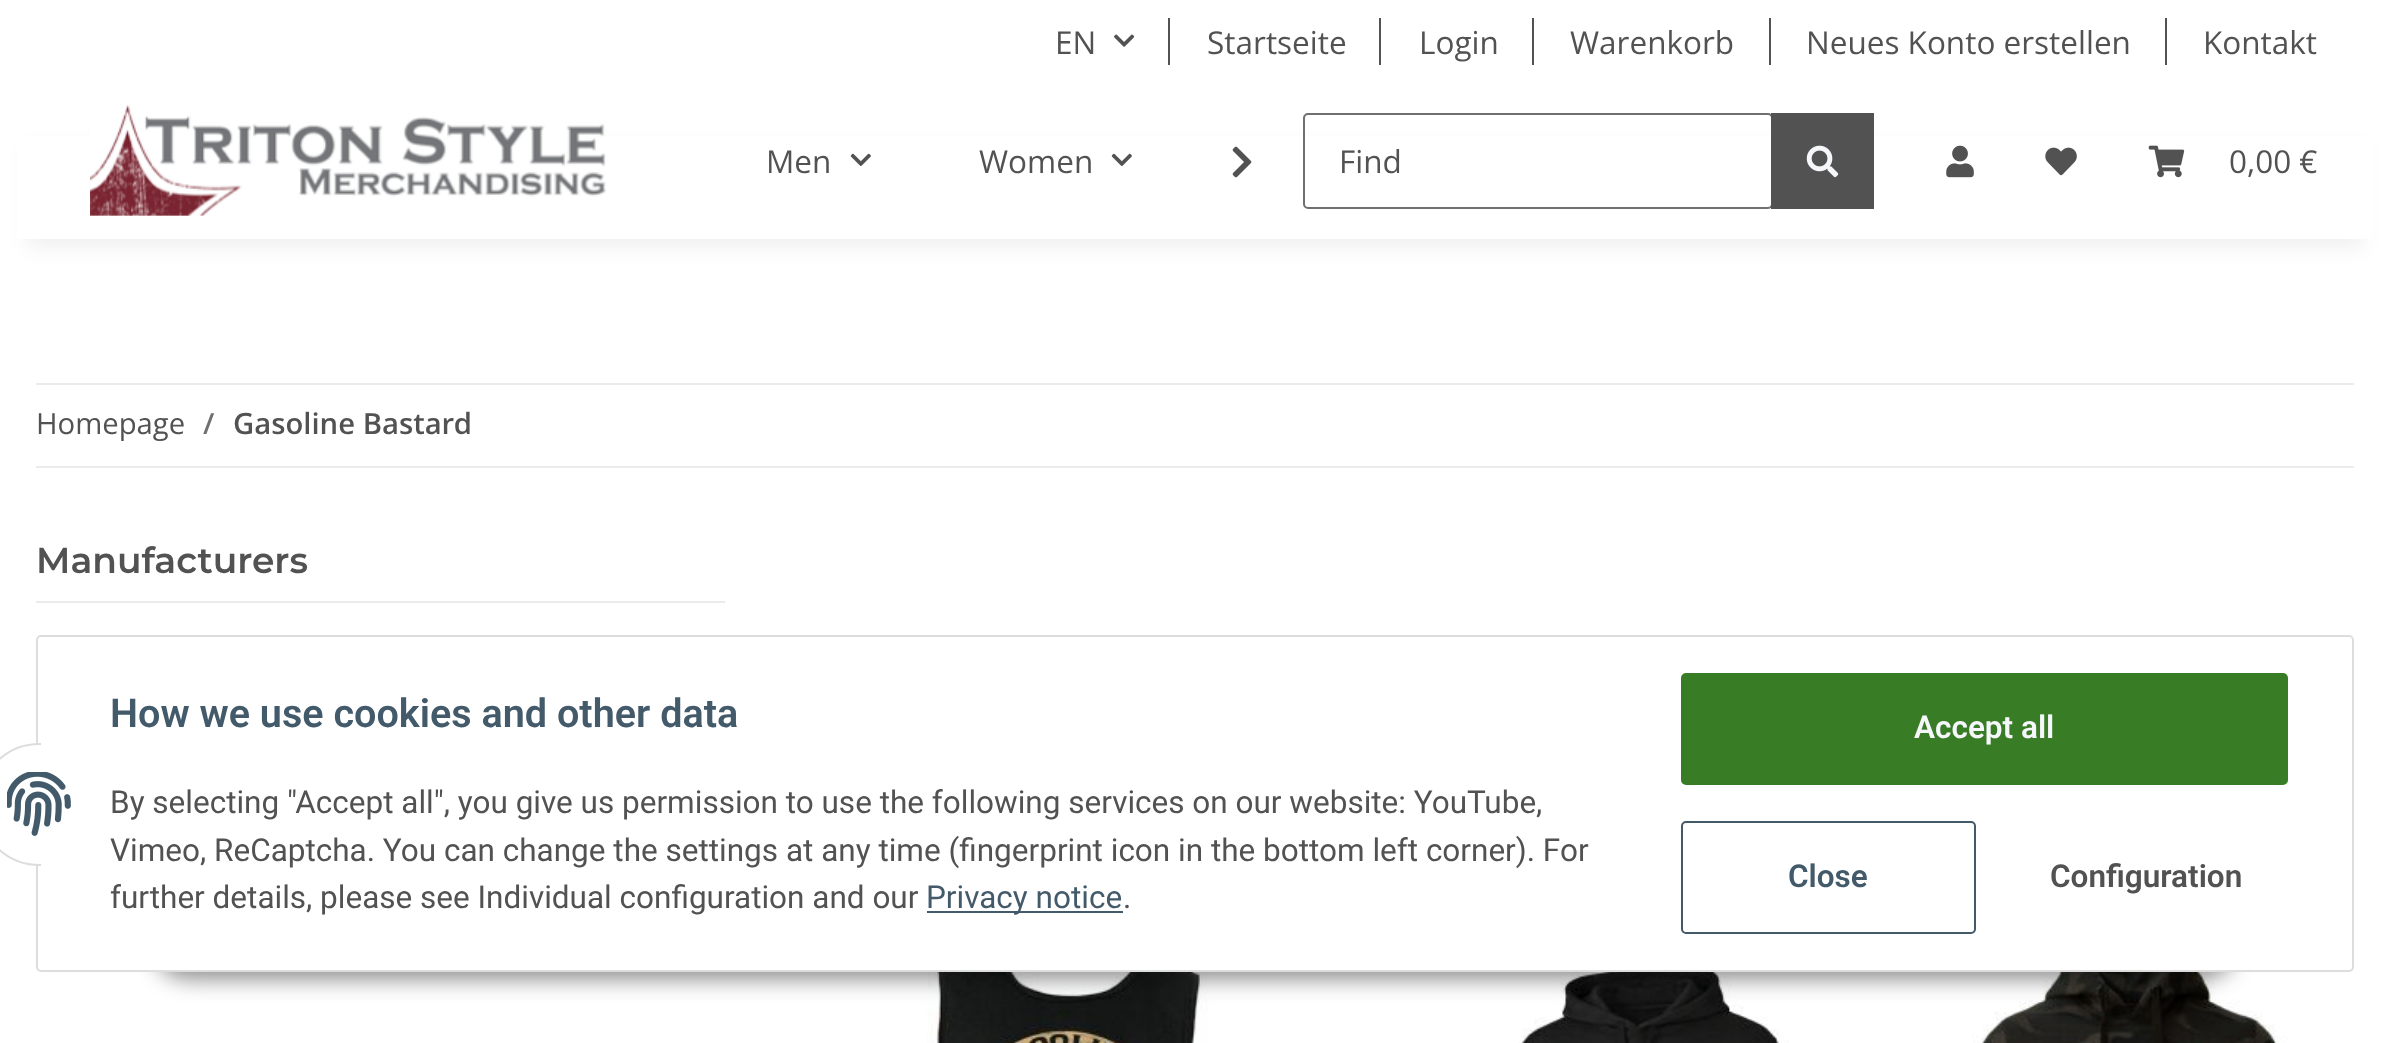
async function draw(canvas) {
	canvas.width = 2389;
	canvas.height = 1043;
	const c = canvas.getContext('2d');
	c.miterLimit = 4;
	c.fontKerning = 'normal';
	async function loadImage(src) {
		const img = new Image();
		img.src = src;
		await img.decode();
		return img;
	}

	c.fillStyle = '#fff';
	c.fillRect(0, 0, 2389, 1043);
	c.font = '31.5px Open Sans';
	c.fillStyle = '#525252';
	c.fillText('EN', 1055, 54);
	c.drawImage(await loadImage('img1.png'), 1114, 34, 21, 13);
	c.fillRect(1168, 18, 2, 47);
	c.fillText('Startseite', 1207, 54);
	c.fillRect(1379, 18, 2, 47);
	c.fillText('Login', 1419, 54);
	c.fillRect(1532, 18, 2, 47);
	c.fillText('Warenkorb', 1570, 54);
	c.fillRect(1769, 18, 2, 47);
	c.fillText('Neues Konto erstellen', 1806, 54);
	c.fillRect(2165, 18, 2, 47);
	c.fillText('Kontakt', 2203, 54);
	c.fillStyle = '#0000000f';
	c.filter = 'blur(10px)';
	c.beginPath();
	c.rect(27, 146, 2336, 102);
	c.fill();
	c.filter = 'none';
	c.fillStyle = '#fff';
	c.fillRect(17, 136, 2356, 103);
	c.drawImage(await loadImage('img2.png'), 90, 104, 516, 112);
	c.fillStyle = '#525252';
	c.fillText('Men', 766, 173);
	c.drawImage(await loadImage('img3.png'), 850, 153, 21, 13);
	c.fillText('Women', 979, 173);
	c.drawImage(await loadImage('img3.png'), 1111, 153, 21, 13);
	c.drawImage(await loadImage('img4.png'), 1232, 146, 20, 32);
	c.beginPath();
	c.roundRect(1304, 114, 468, 94, 4);
	c.strokeStyle = '#707070';
	c.lineWidth = 2;
	c.stroke();
	c.fillText('Find', 1339, 173);
	c.fillRect(1771, 113, 103, 96);
	c.drawImage(await loadImage('img5.png'), 1806, 145, 33, 33);
	c.drawImage(await loadImage('img6.png'), 1946, 145, 28, 33);
	c.drawImage(await loadImage('img7.png'), 2045, 147, 32, 29);
	c.drawImage(await loadImage('img8.png'), 2148, 145, 37, 33);
	c.fillText('0,00 €', 2229, 173);
	c.fillStyle = '#ebebeb';
	c.fillRect(36, 383, 2318, 2);
	c.fillRect(36, 466, 2318, 2);
	c.font = '29.25px Open Sans';
	c.fillStyle = '#525252';
	c.fillText('Homepage', 36, 434);
	c.font = '600 29.25px Open Sans';
	c.fillStyle = '#707070';
	c.fillText('/', 203, 434);
	c.fillStyle = '#525252';
	c.fillText('Gasoline Bastard', 233, 434);
	c.fillStyle = '#ebebeb';
	c.fillRect(36, 601, 689, 2);
	c.font = '600 36px Montserrat';
	c.fillStyle = '#525252';
	c.fillText('Manufacturers', 36, 573);
	c.drawImage(await loadImage('img9.png'), 927, 972, 282, 71);
	c.drawImage(await loadImage('img10.png'), 1518, 972, 271, 71);
	c.drawImage(await loadImage('img11.png'), 1972, 972, 316, 71);
	c.fillStyle = '#00000073';
	c.filter = 'blur(11px)';
	c.beginPath();
	c.roundRect(153, 907, 2084, 72, 36);
	c.fill();
	c.filter = 'none';
	c.fillStyle = '#fff';
	c.beginPath();
	c.roundRect(37, 636, 2316, 335, 4);
	c.fill();
	c.strokeStyle = '#ddd';
	c.stroke();
	c.beginPath();
	c.arc(39.5, 804.5, 60.5, 0, 2 * Math.PI);
	c.fill();
	c.stroke();
	c.fillRect(41, 743, 60, 123);
	c.drawImage(await loadImage('img12.png'), 7, 772, 64, 64);
	c.font = '600 39.6px Roboto';
	c.fillStyle = '#435a6b';
	c.fillText('How we use cookies and other data', 110, 727);
	c.font = '31.5px Roboto';
	c.fillStyle = '#525252';
	for (const [text, x, y] of [
		['By selecting "Accept all", you give us permission to use the following services on our website: YouTube,', 110, 813],
		['Vimeo, ReCaptcha. You can change the settings at any time (fingerprint icon in the bottom left corner). For', 110, 861],
		['further details, please see Individual configuration and our', 110, 908],
	]) {
		c.fillText(text, x, y);
	}
	c.fillStyle = '#435a6b';
	c.fillRect(927, 911, 196, 2);
	c.fillText('Privacy notice', 926, 908);
	c.fillStyle = '#525252';
	c.fillText('.', 1123, 908);
	c.fillStyle = '#397c26';
	c.beginPath();
	c.roundRect(1682, 674, 605, 110, 4);
	c.fill();
	c.strokeStyle = '#397c26';
	c.stroke();
	c.font = '600 31.5px Roboto';
	c.fillStyle = '#f5f7fa';
	c.fillText('Accept all', 1914, 738);
	c.beginPath();
	c.roundRect(1682, 822, 293, 111, 4);
	c.strokeStyle = '#435a6b';
	c.stroke();
	c.fillStyle = '#435a6b';
	c.fillText('Close', 1788, 887);
	c.fillStyle = '#525252';
	c.fillText('Configuration', 2050, 887);
}

draw(document.querySelector('canvas'));
